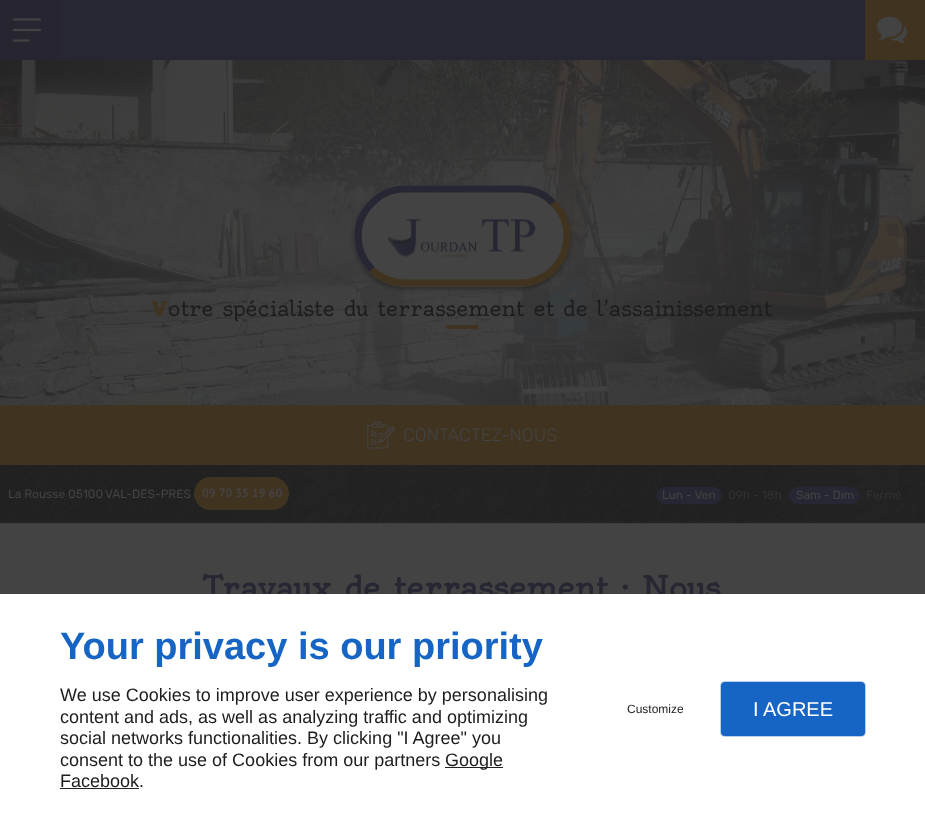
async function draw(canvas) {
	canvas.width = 925;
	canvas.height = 823;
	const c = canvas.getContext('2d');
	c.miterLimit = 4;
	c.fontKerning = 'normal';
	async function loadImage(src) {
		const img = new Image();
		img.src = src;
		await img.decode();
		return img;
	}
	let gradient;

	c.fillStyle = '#434343';
	c.fillRect(0, 0, 925, 823);
	c.fillStyle = '#272733';
	c.fillRect(60, 0, 805, 60);
	c.fillStyle = '#262530';
	c.fillRect(0, 0, 60, 60);
	c.drawImage(await loadImage('img1.png'), 13, 18, 28, 24);
	c.fillStyle = '#403421';
	c.fillRect(865, 0, 60, 60);
	c.drawImage(await loadImage('img2.png'), 877, 16, 30, 28);
	c.drawImage(await loadImage('img3.png'), 0, 60, 925, 345);
	gradient = c.createRadialGradient(463, 462.59, 0, 463, 462.59, 654);
	gradient.addColorStop(0, '#434343cc');
	gradient.addColorStop(1, '#43434300');
	c.fillStyle = gradient;
	c.beginPath();
	c.rect(0, 60, 925, 345);
	c.save();
	c.clip();
	c.scale(1, 369 / 654);
	c.fillRect(0, 0, 925, 1459);
	c.restore();
	c.fillStyle = '#1d1d1d99';
	c.filter = 'blur(2px)';
	c.beginPath();
	c.roundRect(354, 188, 216, 101, 50.5);
	c.fill();
	c.filter = 'none';
	c.fillStyle = '#434343';
	c.beginPath();
	c.roundRect(354, 185, 216, 102, 51);
	c.fill();
	c.beginPath();
	c.moveTo(553, 203);
	c.bezierCurveTo(562, 211.5, 567, 223.5, 567, 236);
	c.bezierCurveTo(567, 248.5, 562, 260.5, 553, 269.5);
	c.bezierCurveTo(544.5, 278, 532.5, 283, 520, 283);
	c.lineTo(405, 283);
	c.bezierCurveTo(392.5, 283, 380.5, 278, 372, 269.5);
	c.strokeStyle = '#403421';
	c.lineWidth = 7.2;
	c.stroke();
	c.beginPath();
	c.moveTo(372, 269.5);
	c.bezierCurveTo(363, 260.5, 358, 248.5, 358, 236);
	c.bezierCurveTo(358, 223.5, 363, 211.5, 372, 203);
	c.bezierCurveTo(380.5, 194, 392.5, 189, 405, 189);
	c.lineTo(520, 189);
	c.bezierCurveTo(532.5, 189, 544.5, 194, 553, 203);
	c.strokeStyle = '#272733';
	c.stroke();
	c.drawImage(await loadImage('img4.png'), 388, 218, 151, 40);
	c.font = '900 21.1px Noto Sans';
	c.fillStyle = '#403421';
	c.fillText('V', 152, 316);
	c.font = '21.1px Oldenburg';
	c.fillStyle = '#1d1d1d';
	c.fillText('otre spécialiste du terrassement et de l’assainissement', 168, 316);
	c.fillStyle = '#403421';
	c.fillRect(446, 325, 32, 4);
	c.fillRect(0, 405, 925, 60);
	c.drawImage(await loadImage('img5.png'), 367, 421, 28, 28);
	c.font = '300 18px "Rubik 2"';
	c.fillStyle = '#434343';
	c.fillText('CONTACTEZ-NOUS', 403, 441);
	c.drawImage(await loadImage('img6.png'), 0, 465, 550, 58);
	c.fillStyle = '#4343431a';
	c.fillRect(0, 522, 550, 1);
	c.font = '300 12px Rubik';
	c.fillStyle = '#434343';
	c.fillText('La Rousse 05100', 8, 498);
	c.fillText('VAL-DES-PRES', 105, 498);
	c.fillStyle = '#403421';
	c.beginPath();
	c.roundRect(194, 477, 95, 33, 16.5);
	c.fill();
	c.font = 'bold 12px PT Sans';
	c.fillStyle = '#434343';
	c.fillText('09 70 35 19 60', 202, 497);
	c.drawImage(await loadImage('img7.png'), 550, 465, 375, 58);
	c.fillStyle = '#272733';
	c.beginPath();
	c.roundRect(656, 487, 66, 17, 8.5);
	c.fill();
	c.font = '300 12px Rubik';
	c.fillStyle = '#434343';
	c.fillText('Lun - Ven', 662, 499);
	c.fillStyle = '#323232';
	c.fillText('09h - 18h', 728, 499);
	c.fillStyle = '#272733';
	c.beginPath();
	c.roundRect(789, 487, 71, 17, 8.5);
	c.fill();
	c.fillStyle = '#434343';
	c.fillText('Sam - Dim', 796, 499);
	c.fillStyle = '#323232';
	c.fillText('Fermé', 866, 499);
	c.drawImage(await loadImage('img8.png'), 0, 523, 925, 1);
	c.font = 'bold 30.75px Oldenburg';
	c.fillStyle = '#272733';
	c.fillText('Travaux de terrassement : Nous', 204, 599);
	c.fillStyle = '#fff';
	c.fillRect(0, 594, 925, 229);
	c.font = 'bold 38px Liberation Sans';
	c.fillStyle = '#1665c4';
	c.fillText('Your privacy is our priority', 60, 659);
	c.font = '18px Liberation Sans';
	c.fillStyle = '#1d1d1d';
	for (const [text, x, y] of [
		['We use Cookies to improve user experience by personalising', 60, 701],
		['content and ads, as well as analyzing traffic and optimizing', 60, 723],
		['social networks functionalities. By clicking "I Agree" you', 60, 744],
		['consent to the use of Cookies from our partners', 60, 766],
	]) {
		c.fillText(text, x, y);
	}
	c.fillStyle = '#222';
	c.fillRect(445, 767, 58, 1);
	c.fillStyle = '#1d1d1d';
	c.fillText('Google', 445, 766);
	c.fillText('Facebook.', 60, 787);
	c.fillStyle = '#222';
	c.fillRect(60, 788, 79, 1);
	c.font = '12px Liberation Sans';
	c.fillStyle = '#1d1d1d';
	c.fillText('Customize', 627, 713);
	c.fillStyle = '#1665c44d';
	c.filter = 'blur(0.5px)';
	c.beginPath();
	c.roundRect(720, 681, 146, 56, 5);
	c.fill();
	c.filter = 'none';
	c.fillStyle = '#1665c4';
	c.beginPath();
	c.roundRect(722, 683, 142, 52, 3);
	c.fill();
	c.strokeStyle = '#1665c4';
	c.lineWidth = 2;
	c.stroke();
	c.font = '20px Liberation Sans';
	c.fillStyle = '#fff';
	c.fillText('I AGREE', 753, 716);
}

draw(document.querySelector('canvas'));
